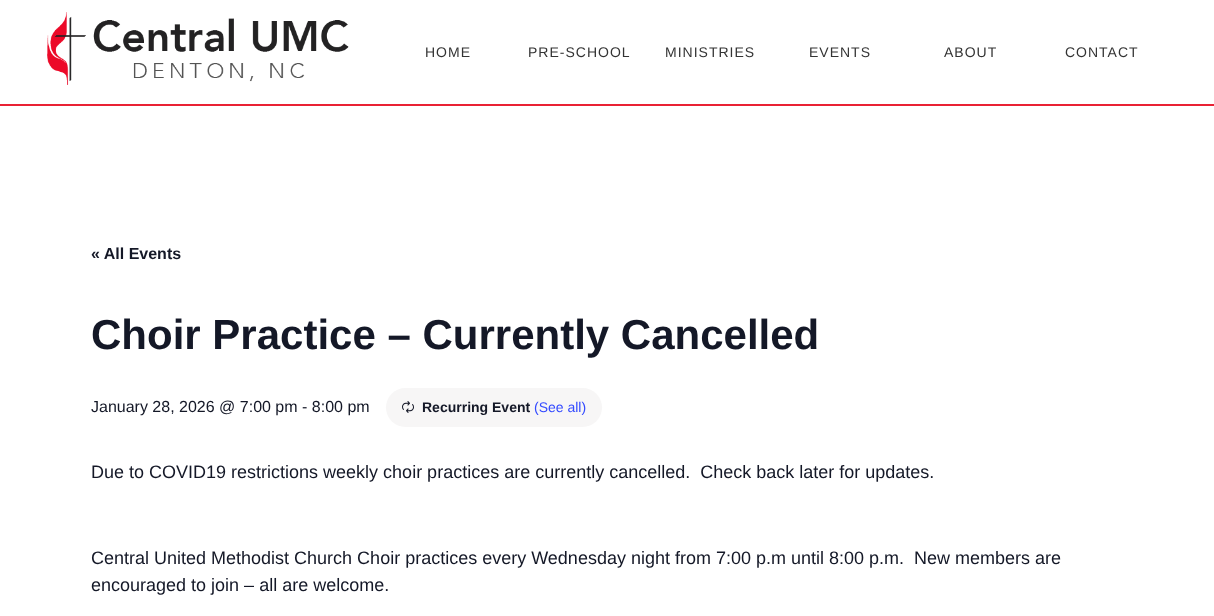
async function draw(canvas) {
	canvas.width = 1214;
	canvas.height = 616;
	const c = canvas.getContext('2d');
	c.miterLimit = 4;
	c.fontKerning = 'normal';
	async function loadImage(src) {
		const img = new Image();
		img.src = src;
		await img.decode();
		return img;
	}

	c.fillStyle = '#fff';
	c.fillRect(0, 0, 1214, 616);
	c.fillStyle = '#e92134';
	c.fillRect(0, 104, 1214, 2);
	c.drawImage(await loadImage('img1.png'), 47, 12, 302, 73);
	c.letterSpacing = '1px';
	c.font = '14px Liberation Sans';
	c.fillStyle = '#333';
	for (const [text, x, y] of [
		['HOME', 425, 57],
		['PRE-SCHOOL', 528, 57],
		['MINISTRIES', 665, 57],
		['EVENTS', 809, 57],
		['ABOUT', 944, 57],
		['CONTACT', 1065, 57],
	]) {
		c.fillText(text, x, y);
	}
	c.letterSpacing = '0px';
	c.font = 'bold 16px Liberation Sans';
	c.fillStyle = '#141827';
	c.fillText('« All Events', 91, 259);
	c.font = 'bold 42px Liberation Sans';
	c.fillText('Choir Practice – Currently Cancelled', 91, 349);
	c.font = '16px Liberation Sans';
	c.fillText('January 28, 2026 @ 7:00 pm - 8:00 pm', 91, 412);
	c.fillStyle = '#f7f6f6';
	c.beginPath();
	c.roundRect(386, 388, 216, 39, 19.5);
	c.fill();
	c.drawImage(await loadImage('img2.png'), 402, 401, 12, 12);
	c.font = 'bold 14px Liberation Sans';
	c.fillStyle = '#141827';
	c.fillText('Recurring Event', 422, 412);
	c.font = '14px Liberation Sans';
	c.fillStyle = '#334aff';
	c.fillText('(See all)', 534, 412);
	c.font = '18px Liberation Sans';
	c.fillStyle = '#141827';
	for (const [text, x, y] of [
		['Due to COVID19 restrictions weekly choir practices are currently cancelled.  Check back later for updates.', 91, 478],
		['Central United Methodist Church Choir practices every Wednesday night from 7:00 p.m until 8:00 p.m.  New members are', 91, 564],
		['encouraged to join – all are welcome.', 91, 591],
	]) {
		c.fillText(text, x, y);
	}
}

draw(document.querySelector('canvas'));
